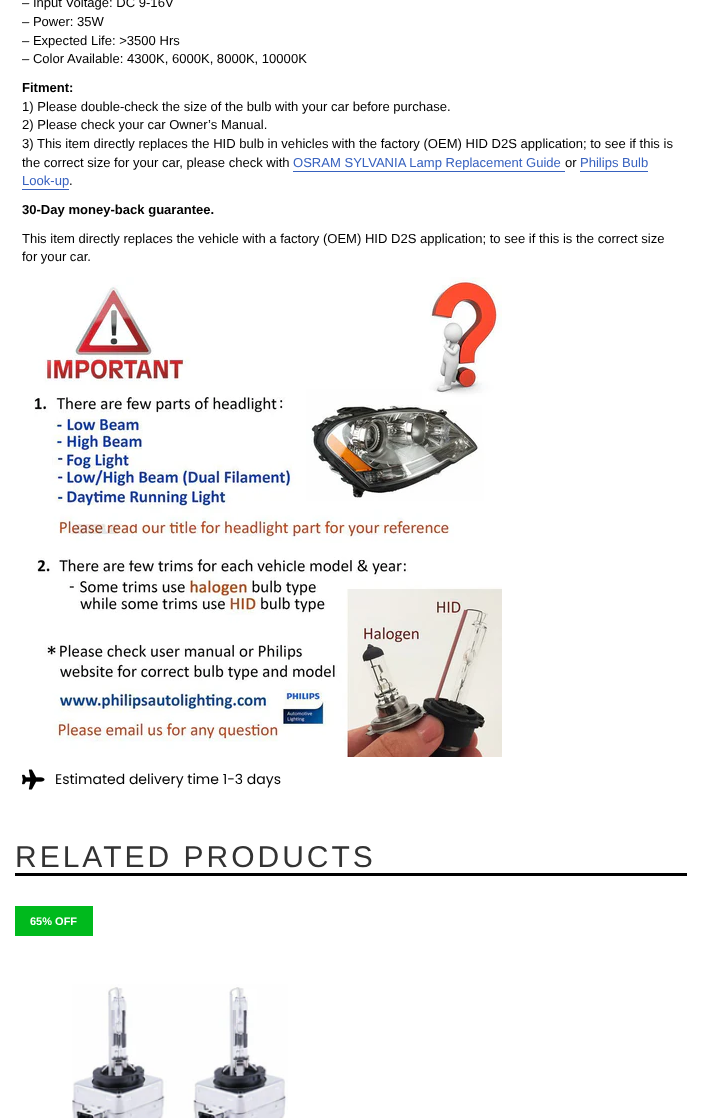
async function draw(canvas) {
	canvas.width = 702;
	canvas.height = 1118;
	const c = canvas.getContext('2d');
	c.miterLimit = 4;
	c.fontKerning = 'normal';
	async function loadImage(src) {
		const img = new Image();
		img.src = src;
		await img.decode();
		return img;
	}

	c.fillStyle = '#fff';
	c.fillRect(0, 0, 702, 1118);
	c.font = '13.05px Liberation Sans';
	c.fillStyle = '#000';
	for (const [text, x, y] of [
		['– Input Voltage: DC 9-16V', 22, 7],
		['– Power: 35W', 22, 26],
		['– Expected Life: >3500 Hrs', 22, 45],
		['– Color Available: 4300K, 6000K, 8000K, 10000K', 22, 63],
	]) {
		c.fillText(text, x, y);
	}
	c.font = 'bold 13.05px Liberation Sans';
	c.fillText('Fitment:', 22, 92);
	c.font = '13.05px Liberation Sans';
	for (const [text, x, y] of [
		['1) Please double-check the size of the bulb with your car before purchase.', 22, 111],
		['2) Please check your car Owner’s Manual.', 22, 129],
		['3) This item directly replaces the HID bulb in vehicles with the factory (OEM) HID D2S application; to see if this is', 22, 148],
		['the correct size for your car, please check with', 22, 167],
	]) {
		c.fillText(text, x, y);
	}
	c.fillStyle = '#3761bf';
	c.fillText('OSRAM SYLVANIA Lamp Replacement Guide', 293, 167);
	c.fillRect(293, 171, 272, 1);
	c.fillStyle = '#000';
	c.fillText('or', 565, 167);
	c.fillStyle = '#3761bf';
	c.fillText('Philips Bulb', 580, 167);
	c.fillRect(580, 171, 68, 1);
	c.fillText('Look-up', 22, 185);
	c.fillRect(22, 189, 47, 1);
	c.fillStyle = '#000';
	c.fillText('.', 69, 185);
	c.font = 'bold 13.05px Liberation Sans';
	c.fillText('30-Day money-back guarantee.', 22, 214);
	c.font = '13.05px Liberation Sans';
	c.fillText('This item directly replaces the vehicle with a factory (OEM) HID D2S application; to see if this is the correct size', 22, 243);
	c.fillText('for your car.', 22, 261);
	c.drawImage(await loadImage('img1.png'), 34, 277, 468, 480);
	c.drawImage(await loadImage('img2.png'), 22, 769, 23, 21);
	c.font = '14px Poppins';
	c.fillText('Estimated delivery time 1-3 days', 55, 784);
	c.fillRect(15, 873, 672, 3);
	c.letterSpacing = '3px';
	c.font = '30px Liberation Sans';
	c.fillStyle = '#333';
	c.fillText('RELATED PRODUCTS', 15, 867);
	c.fillStyle = '#00ba1d';
	c.fillRect(15, 906, 78, 30);
	c.letterSpacing = '0px';
	c.font = 'bold 11px Liberation Sans';
	c.fillStyle = '#fff';
	c.fillText('65% OFF', 30, 925);
	c.drawImage(await loadImage('img3.png'), 72, 984, 216, 134);
}

draw(document.querySelector('canvas'));
